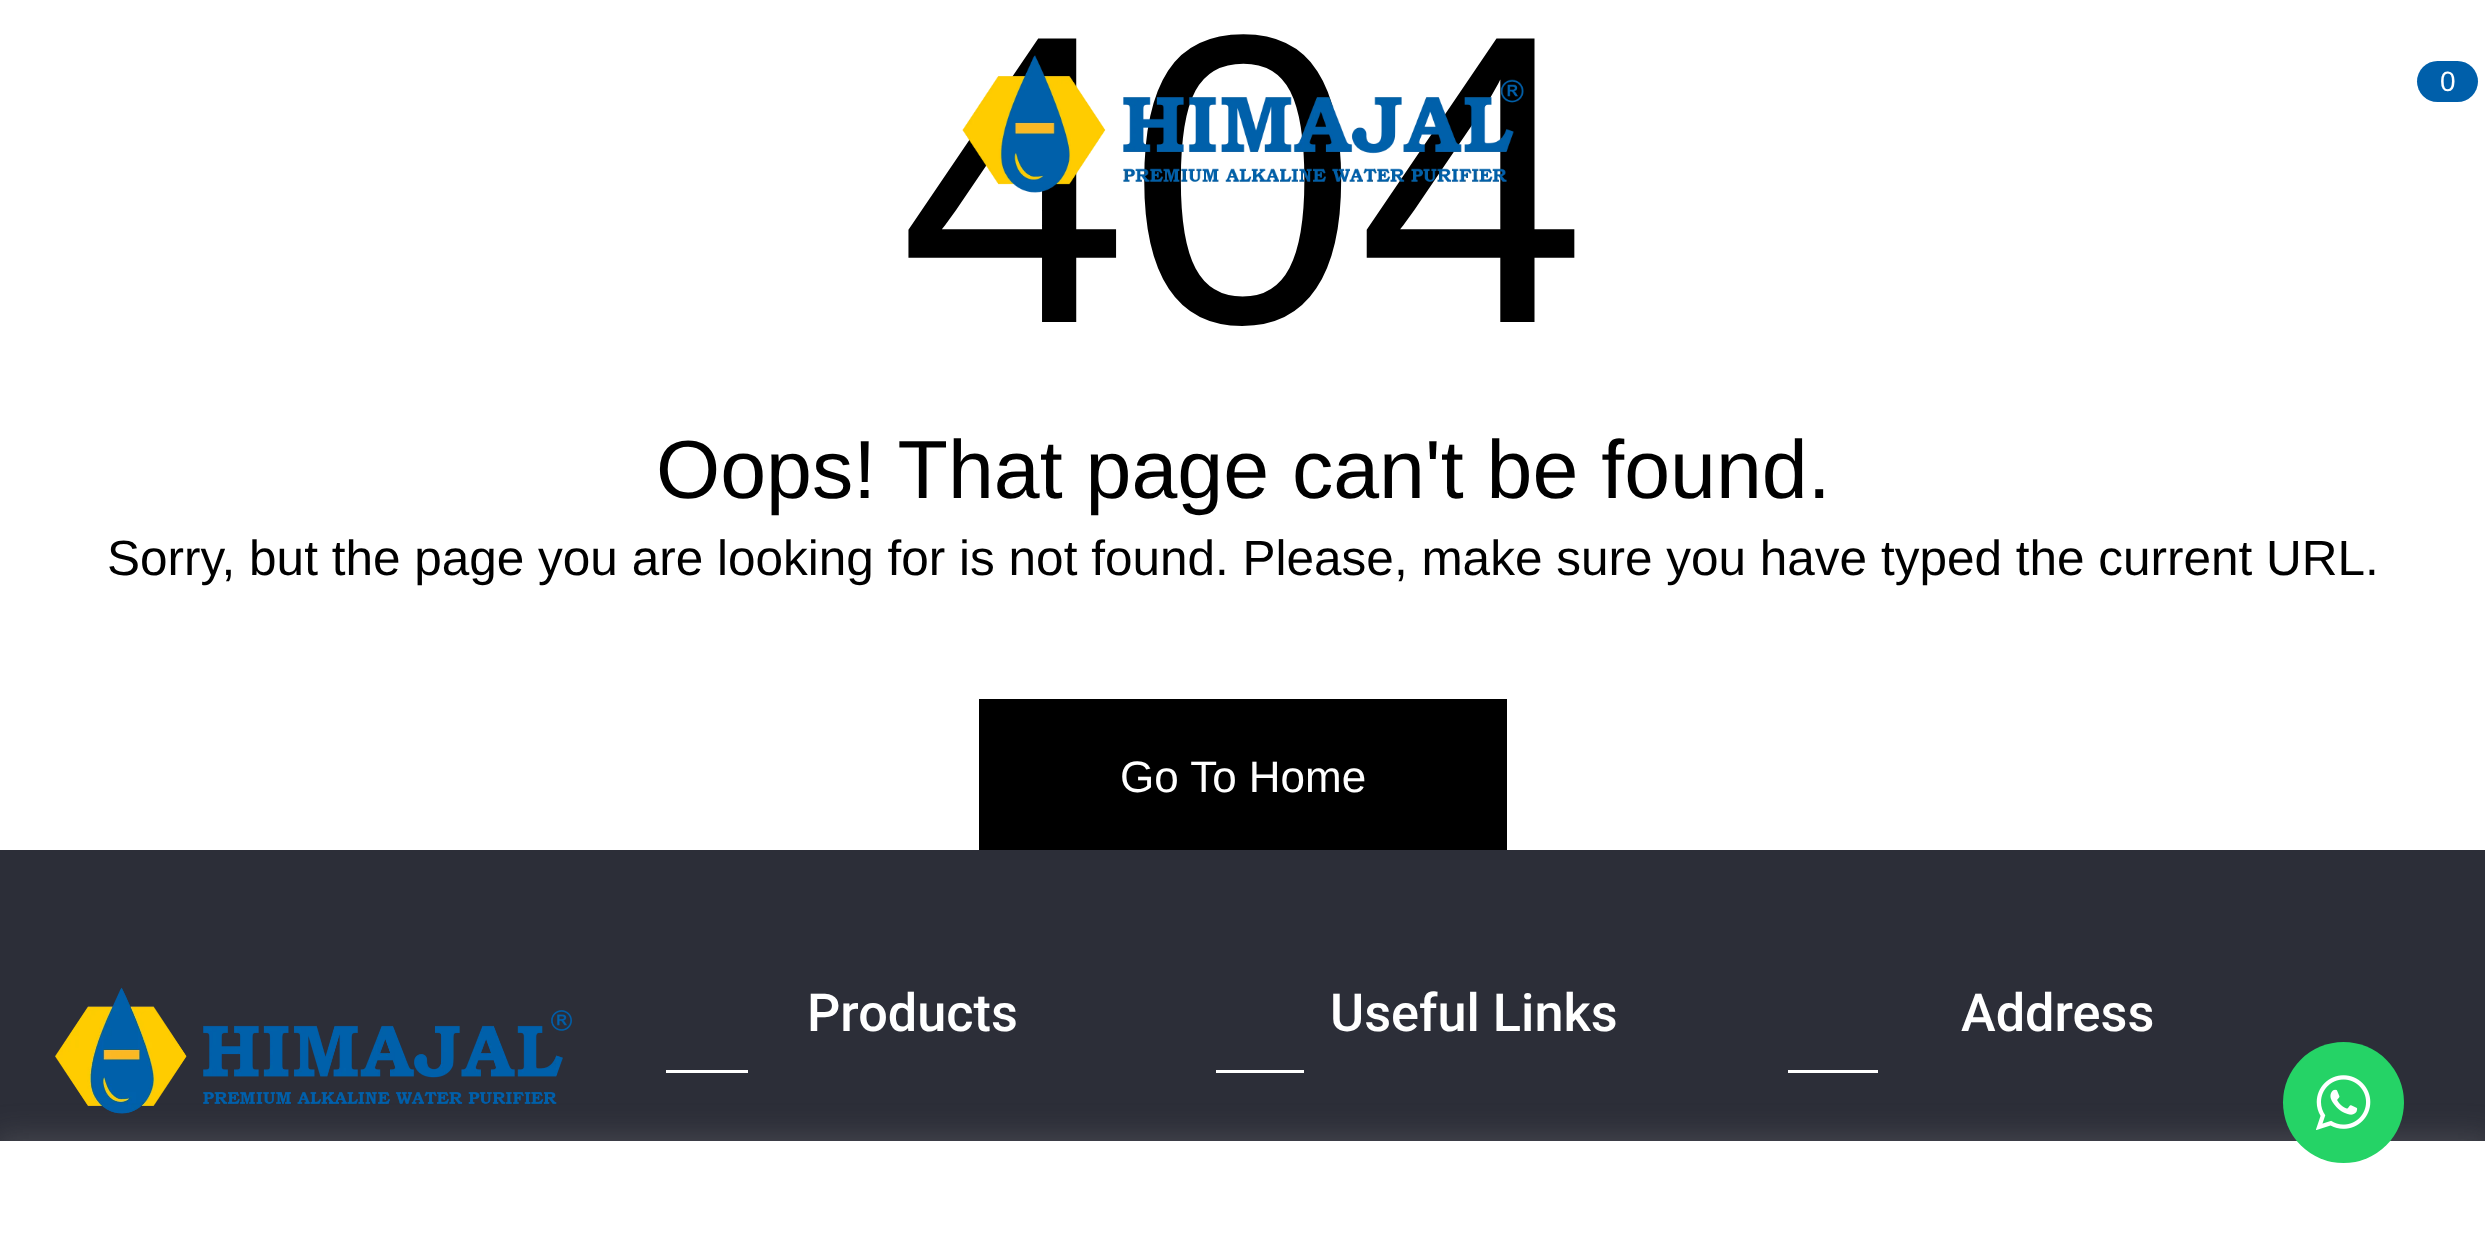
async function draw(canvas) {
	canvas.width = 2485;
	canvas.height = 1244;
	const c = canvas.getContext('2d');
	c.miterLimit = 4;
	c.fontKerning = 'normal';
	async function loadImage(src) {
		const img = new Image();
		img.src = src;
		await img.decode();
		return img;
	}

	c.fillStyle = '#fff';
	c.fillRect(0, 0, 2485, 1244);
	c.font = '412px Liberation Sans';
	c.fillStyle = '#000';
	c.fillText('404', 899, 322);
	c.font = '82.5px Liberation Sans';
	c.fillText('Oops! That page can\'t be found.', 656, 498);
	c.font = '49.5px Liberation Sans';
	c.fillText('Sorry, but the page you are looking for is not found. Please, make sure you have typed the current URL.', 107, 575);
	c.fillRect(979, 699, 528, 151);
	c.font = '44px Liberation Sans';
	c.fillStyle = '#fff';
	c.fillText('Go To Home', 1120, 792);
	c.fillStyle = '#2c2e38';
	c.fillRect(0, 850, 2485, 291);
	c.drawImage(await loadImage('img1.png'), 55, 987, 517, 127);
	c.font = '500 52.25px Roboto';
	c.fillStyle = '#fff';
	c.fillText('Products', 807, 1031);
	c.fillRect(666, 1070, 82, 3);
	c.fillText('Useful Links', 1330, 1031);
	c.fillRect(1216, 1070, 88, 3);
	c.fillText('Address', 1961, 1031);
	c.fillRect(1788, 1070, 90, 3);
	c.drawImage(await loadImage('img2.png'), 962, 55, 562, 138);
	c.fillStyle = '#005faa';
	c.beginPath();
	c.roundRect(2417, 61, 61, 41, 20.5);
	c.fill();
	c.font = '28px Liberation Sans';
	c.fillStyle = '#fff';
	c.fillText('0', 2440, 91);
	c.fillStyle = '#8f8f8f4d';
	c.filter = 'blur(16.5px)';
	c.beginPath();
	c.rect(-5, 1139, 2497, 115);
	c.fill();
	c.filter = 'none';
	c.fillStyle = '#fff';
	c.fillRect(0, 1141, 2485, 103);
	c.fillStyle = '#25d366';
	c.beginPath();
	c.arc(2343.5, 1102.5, 60.5, 0, 2 * Math.PI);
	c.fill();
	c.drawImage(await loadImage('img3.png'), 2316, 1075, 55, 55);
}

draw(document.querySelector('canvas'));
